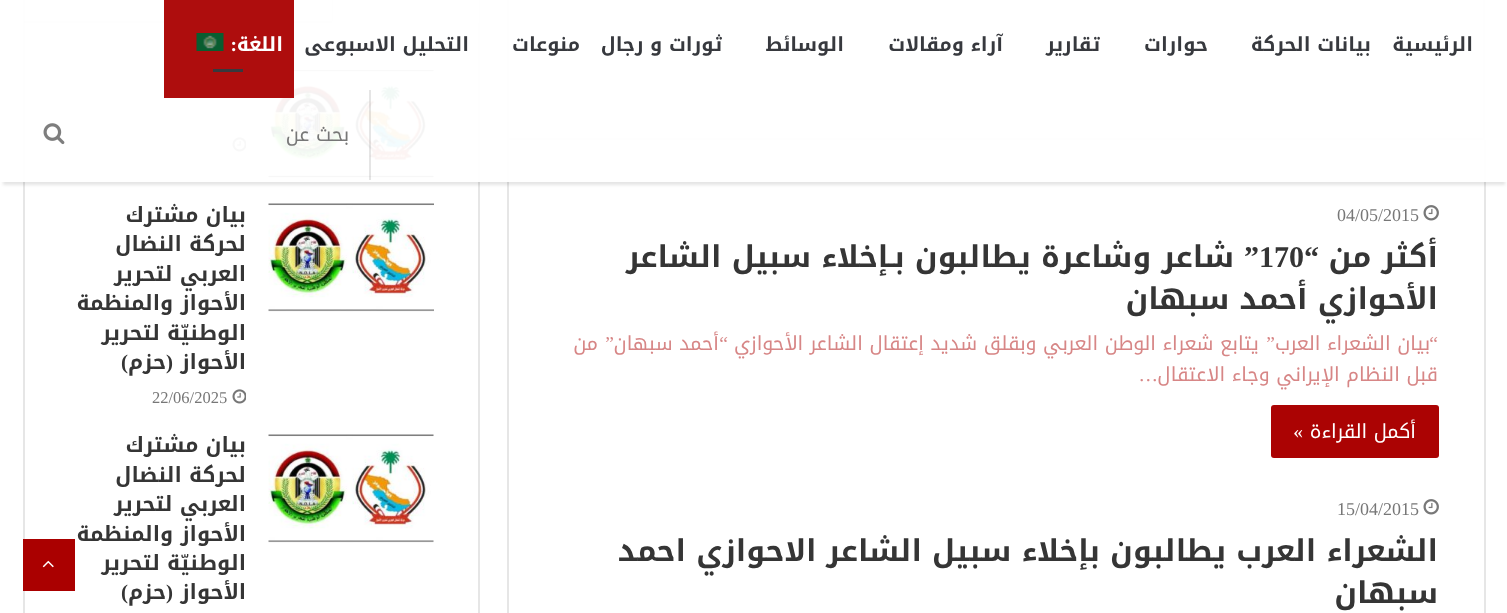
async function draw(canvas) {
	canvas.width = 1507;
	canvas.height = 613;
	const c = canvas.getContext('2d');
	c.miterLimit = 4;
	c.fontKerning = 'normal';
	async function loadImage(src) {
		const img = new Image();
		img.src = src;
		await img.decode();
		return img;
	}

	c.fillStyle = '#fff';
	c.fillRect(0, 0, 1507, 613);
	c.strokeStyle = '#e6e6e6';
	c.lineWidth = 2;
	c.strokeRect(508, -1, 976, 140);
	c.fillStyle = '#e6e6e6';
	c.fillRect(1484, 140, 2, 473);
	c.fillRect(507, 140, 2, 473);
	c.strokeRect(24, -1, 455, 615);
	c.fillStyle = '#0000001a';
	c.fillRect(24, 21, 308, 2);
	c.fillStyle = '#fff';
	c.fillRect(478, 0, 1, 23);
	c.fillStyle = '#e6e6e6';
	c.beginPath();
	c.moveTo(332, 22);
	c.lineTo(332, -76);
	c.lineTo(333, -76);
	c.lineTo(333, 21);
	c.closePath();
	c.fill();
	c.fillStyle = '#0000001a';
	c.beginPath();
	c.moveTo(182, 22);
	c.lineTo(182, -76);
	c.lineTo(183, -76);
	c.lineTo(183, 21);
	c.closePath();
	c.fill();
	c.drawImage(await loadImage('img4.png'), 268, 69, 166, 109);
	c.drawImage(await loadImage('img5.png'), 232, 137, 14, 15);
	c.save();
	c.beginPath();
	c.moveTo(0, 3);
	c.lineTo(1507, 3);
	c.lineTo(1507, 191);
	c.lineTo(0, 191);
	c.closePath();
	c.moveTo(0, 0);
	c.lineTo(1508, 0);
	c.lineTo(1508, 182);
	c.lineTo(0, 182);
	c.closePath();
	c.clip('evenodd');
	c.filter = 'blur(1.5px)';
	c.beginPath();
	c.rect(3, 9, 1502, 176);
	c.fill();
	c.filter = 'none';
	c.restore();
	c.fillStyle = '#fffffff2';
	c.fillRect(2, 0, 1504, 182);
	c.direction = 'rtl';
	c.font = 'bold 19.5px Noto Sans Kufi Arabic';
	c.fillStyle = '#37393e';
	for (const [text, x, y] of [
		['الرئيسية', 1473, 51],
		['بيانات الحركة', 1371, 51],
		['حوارات', 1208, 51],
		['تقارير', 1100, 51],
		['آراء ومقالات', 1003, 51],
		['الوسائط', 844, 51],
		['ثورات و رجال', 722, 51],
		['منوعات', 580, 51],
		['التحليل الاسبوعى', 469, 51],
	]) {
		c.fillText(text, x, y);
	}
	c.fillStyle = '#aa0000f2';
	c.fillRect(164, 90, 130, 8);
	c.fillRect(164, 0, 130, 90);
	c.fillStyle = '#fff';
	c.fillText('اللغة', 283, 51);
	c.font = 'bold 19.5px Liberation Serif';
	c.fillText(':', 237, 51);
	c.drawImage(await loadImage('img1.png'), 196, 33, 28, 18);
	c.fillStyle = '#37393e';
	c.fillRect(213, 69, 30, 3);
	c.fillStyle = '#0000001a';
	c.fillRect(369, 90, 2, 90);
	c.font = '19.5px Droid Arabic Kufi';
	c.fillStyle = '#777';
	c.fillText('بحث عن', 349, 141);
	c.drawImage(await loadImage('img2.png'), 43, 123, 22, 22);
	c.drawImage(await loadImage('img3.png'), 1423, 205, 16, 16);
	c.direction = 'ltr';
	c.font = '18px Liberation Serif';
	c.fillText('04/05/2015', 1337, 221);
	c.direction = 'rtl';
	c.font = 'bold 30px Droid Arabic Kufi';
	c.fillStyle = '#353535';
	c.fillText('أكثر من', 1438, 267);
	c.font = 'bold 30px Liberation Serif';
	c.fillText('“', 1319, 267);
	c.direction = 'ltr';
	c.fillText('170', 1259, 267);
	c.direction = 'rtl';
	c.fillText('”', 1259, 267);
	c.font = 'bold 30px Droid Arabic Kufi';
	c.fillText('شاعر وشاعرة يطالبون بـإخلاء سبيل الشاعر', 1234, 267);
	c.fillText('الأحوازي أحمد سبهان', 1438, 309);
	c.font = '19.5px Liberation Serif';
	c.fillStyle = '#d78686';
	c.fillText('“', 1438, 350);
	c.font = '19.5px Droid Arabic Kufi';
	c.fillText('بيان الشعراء العرب', 1430, 350);
	c.font = '19.5px Liberation Serif';
	c.fillText('”', 1275, 350);
	c.font = '19.5px Droid Arabic Kufi';
	c.fillText('يتابع شعراء الوطن العربي وبقلق شديد إعتقال الشاعر الأحوازي', 1259, 350);
	c.font = '19.5px Liberation Serif';
	c.fillText('“', 728, 350);
	c.font = '19.5px Droid Arabic Kufi';
	c.fillText('أحمد سبهان', 719, 350);
	c.font = '19.5px Liberation Serif';
	c.fillText('”', 614, 350);
	c.font = '19.5px Droid Arabic Kufi';
	c.fillText('من', 598, 350);
	c.fillText('قبل النظام الإيراني وجاء الاعتقال', 1438, 381);
	c.font = '19.5px Liberation Serif';
	c.fillText('…', 1158, 381);
	c.fillStyle = '#ab0303';
	c.beginPath();
	c.roundRect(1271, 405, 168, 53, 3);
	c.fill();
	c.font = '19.5px Droid Arabic Kufi';
	c.fillStyle = '#fff';
	c.fillText('أكمل القراءة', 1416, 438);
	c.font = '19.5px Liberation Serif';
	c.fillText('»', 1303, 438);
	c.drawImage(await loadImage('img3.png'), 1423, 499, 16, 16);
	c.direction = 'ltr';
	c.font = '18px Liberation Serif';
	c.fillStyle = '#777';
	c.fillText('15/04/2015', 1337, 515);
	c.direction = 'rtl';
	c.font = 'bold 30px Droid Arabic Kufi';
	c.fillStyle = '#353535';
	c.fillText('الشعراء العرب يطالبون بإخلاء سبيل الشاعر الاحوازي احمد', 1438, 561);
	c.fillText('سبهان', 1438, 603);
	c.drawImage(await loadImage('img6.png'), 268, 203, 166, 109);
	c.font = 'bold 21px Droid Arabic Kufi';
	for (const [text, x, y] of [
		['بيان مشترك', 246, 222],
		['لحركة النضال', 246, 251],
		['العربي لتحرير', 246, 281],
		['الأحواز والمنظمة', 246, 310],
		['الوطنيّة لتحرير', 246, 340],
		['الأحواز', 246, 369],
	]) {
		c.fillText(text, x, y);
	}
	c.font = 'bold 21px Liberation Serif';
	c.fillText('(', 173, 369);
	c.font = 'bold 21px Droid Arabic Kufi';
	c.fillText('حزم', 166, 369);
	c.font = 'bold 21px Liberation Serif';
	c.fillText(')', 128, 369);
	c.drawImage(await loadImage('img5.png'), 232, 389, 14, 15);
	c.direction = 'ltr';
	c.font = '16.5px Liberation Serif';
	c.fillStyle = '#777';
	c.fillText('22/06/2025', 152, 403);
	c.drawImage(await loadImage('img7.png'), 268, 434, 166, 109);
	c.direction = 'rtl';
	c.font = 'bold 21px Droid Arabic Kufi';
	c.fillStyle = '#353535';
	for (const [text, x, y] of [
		['بيان مشترك', 246, 452],
		['لحركة النضال', 246, 482],
		['العربي لتحرير', 246, 511],
		['الأحواز والمنظمة', 246, 541],
		['الوطنيّة لتحرير', 246, 570],
		['الأحواز', 246, 599],
	]) {
		c.fillText(text, x, y);
	}
	c.font = 'bold 21px Liberation Serif';
	c.fillText('(', 173, 599);
	c.font = 'bold 21px Droid Arabic Kufi';
	c.fillText('حزم', 166, 599);
	c.font = 'bold 21px Liberation Serif';
	c.fillText(')', 128, 599);
	c.fillStyle = '#a00';
	c.fillRect(23, 539, 52, 52);
	c.drawImage(await loadImage('img8.png'), 42, 560, 12, 8);
}

draw(document.querySelector('canvas'));
